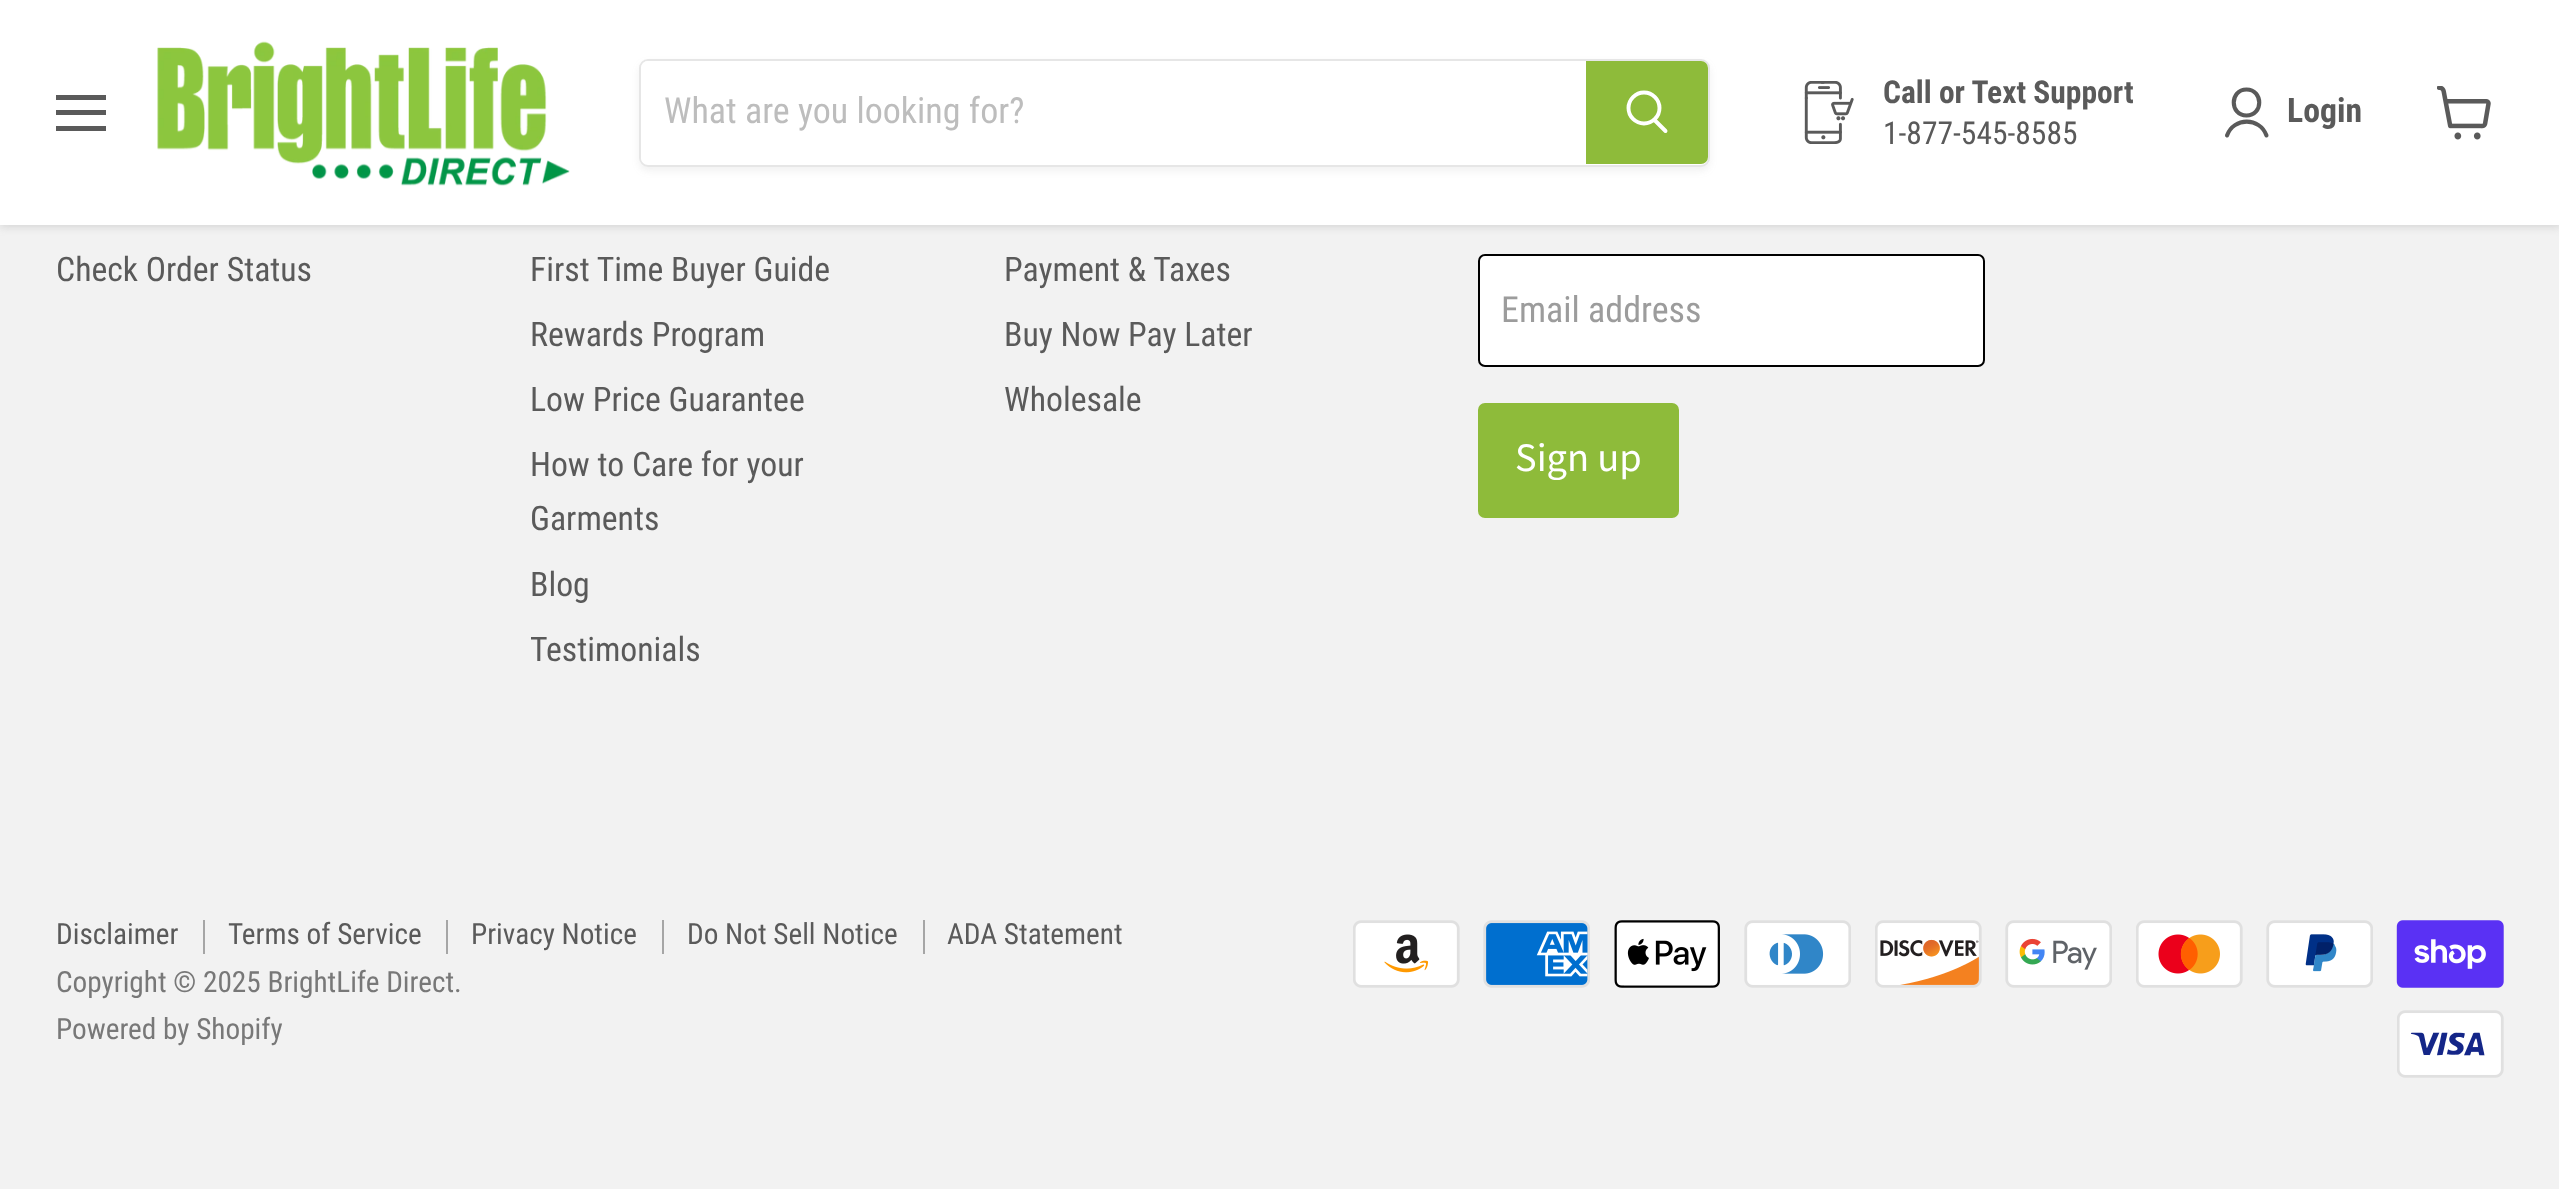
async function draw(canvas) {
	canvas.width = 2559;
	canvas.height = 1189;
	const c = canvas.getContext('2d');
	c.miterLimit = 4;
	c.fontKerning = 'normal';
	async function loadImage(src) {
		const img = new Image();
		img.src = src;
		await img.decode();
		return img;
	}

	c.fillStyle = '#f2f2f2';
	c.fillRect(0, 0, 2559, 1189);
	c.fillStyle = '#80808040';
	c.filter = 'blur(4.5px)';
	c.beginPath();
	c.rect(0, 2, 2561, 225);
	c.fill();
	c.filter = 'none';
	for (const [x, y, w, h, color] of [
		[0, 0, 2559, 225, '#fff'],
		[56, 95, 50, 5, '#5a5a5a'],
		[56, 110, 50, 5, '#5a5a5a'],
		[56, 126, 50, 5, '#5a5a5a'],
	]) {
		c.fillStyle = color;
		c.fillRect(x, y, w, h);
	}
	c.drawImage(await loadImage('img1.png'), 157, 41, 413, 145);
	c.save();
	c.beginPath();
	c.moveTo(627, 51);
	c.lineTo(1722, 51);
	c.lineTo(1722, 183);
	c.lineTo(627, 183);
	c.closePath();
	c.moveTo(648, 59);
	c.lineTo(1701, 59);
	c.bezierCurveTo(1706, 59, 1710, 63, 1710, 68);
	c.lineTo(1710, 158);
	c.bezierCurveTo(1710, 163, 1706, 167, 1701, 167);
	c.lineTo(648, 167);
	c.bezierCurveTo(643, 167, 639, 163, 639, 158);
	c.lineTo(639, 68);
	c.bezierCurveTo(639, 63, 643, 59, 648, 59);
	c.closePath();
	c.clip('evenodd');
	c.fillStyle = '#8080801c';
	c.filter = 'blur(3.5px)';
	c.beginPath();
	c.roundRect(639, 63, 1071, 108, 9);
	c.fill();
	c.filter = 'none';
	c.restore();
	c.beginPath();
	c.roundRect(640, 60, 1069, 106, 8);
	c.strokeStyle = '#80808033';
	c.lineWidth = 2;
	c.stroke();
	c.fillStyle = '#fff';
	c.beginPath();
	c.roundRect(641, 61, 945, 103, [7, 0, 0, 7]);
	c.fill();
	c.font = '36px Roboto Condensed';
	c.fillStyle = '#bdbdbd';
	c.fillText('What are you looking for?', 664, 123);
	c.fillStyle = '#8ebb3a';
	c.beginPath();
	c.roundRect(1587, 62, 120, 101, [0, 6, 6, 0]);
	c.fill();
	c.strokeStyle = '#8ebb3a';
	c.stroke();
	c.beginPath();
	c.moveTo(1665.5, 131);
	c.lineTo(1655, 120.5);
	c.strokeStyle = '#fff';
	c.lineWidth = 3.9;
	c.lineCap = 'round';
	c.stroke();
	c.beginPath();
	c.arc(1644, 108, 15.5, 0, 2 * Math.PI);
	c.stroke();
	c.drawImage(await loadImage('img2.png'), 1804, 81, 50, 63);
	c.font = 'bold 31.5px Roboto Condensed';
	c.fillStyle = '#5a5a5a';
	c.fillText('Call or Text Support', 1883, 103);
	c.font = '31.5px Roboto Condensed';
	c.fillText('1-877-545-8585', 1883, 144);
	c.beginPath();
	c.moveTo(2246.5, 115.5);
	c.bezierCurveTo(2263.5, 115.5, 2263.5, 89.5, 2246.5, 89.5);
	c.bezierCurveTo(2229.5, 89.5, 2229.5, 115.5, 2246.5, 115.5);
	c.closePath();
	c.moveTo(2266.5, 135.5);
	c.bezierCurveTo(2260, 117, 2233.5, 117, 2227, 135.5);
	c.strokeStyle = '#5a5a5a';
	c.lineWidth = 4.1;
	c.lineJoin = 'round';
	c.stroke();
	c.font = 'bold 33.75px Roboto Condensed';
	c.fillText('Login', 2287, 122);
	c.drawImage(await loadImage('img3.png'), 2437, 86, 54, 54);
	c.font = '33.75px Roboto Condensed';
	for (const [text, x, y] of [
		['Check Order Status', 56, 281],
		['First Time Buyer Guide', 530, 281],
		['Rewards Program', 530, 346],
		['Low Price Guarantee', 530, 411],
		['How to Care for your', 530, 476],
		['Garments', 530, 530],
		['Blog', 530, 596],
		['Testimonials', 530, 661],
		['Payment & Taxes', 1004, 281],
		['Buy Now Pay Later', 1004, 346],
		['Wholesale', 1004, 411],
	]) {
		c.fillText(text, x, y);
	}
	c.fillStyle = '#fff';
	c.beginPath();
	c.roundRect(1479, 255, 505, 111, 6);
	c.fill();
	c.strokeStyle = '#000';
	c.lineWidth = 2;
	c.lineJoin = 'miter';
	c.stroke();
	c.font = '36px Roboto Condensed';
	c.fillStyle = '#9c9c9c';
	c.fillText('Email address', 1501, 322);
	c.fillStyle = '#8ebb3a';
	c.beginPath();
	c.roundRect(1479, 404, 199, 113, 6);
	c.fill();
	c.strokeStyle = '#8ebb3a';
	c.stroke();
	c.font = '40.5px Source Sans Pro';
	c.fillStyle = '#fff';
	c.fillText('Sign up', 1515, 471);
	c.fillStyle = '#a6a6a6';
	c.fillRect(203, 920, 2, 34);
	c.font = '29.25px Roboto Condensed';
	c.fillStyle = '#5a5a5a';
	c.fillText('Disclaimer', 56, 944);
	c.fillStyle = '#a6a6a6';
	c.fillRect(446, 920, 2, 34);
	c.fillStyle = '#5a5a5a';
	c.fillText('Terms of Service', 228, 944);
	c.fillStyle = '#a6a6a6';
	c.fillRect(662, 920, 2, 34);
	c.fillStyle = '#5a5a5a';
	c.fillText('Privacy Notice', 471, 944);
	c.fillStyle = '#a6a6a6';
	c.fillRect(923, 920, 2, 34);
	c.fillStyle = '#5a5a5a';
	c.fillText('Do Not Sell Notice', 687, 944);
	c.fillText('ADA Statement', 947, 944);
	c.fillStyle = '#787878';
	c.fillText('Copyright © 2025 BrightLife Direct.', 56, 992);
	c.fillText('Powered by Shopify', 56, 1039);
	c.drawImage(await loadImage('img4.png'), 1353, 920, 107, 68);
	c.drawImage(await loadImage('img5.png'), 1483, 920, 107, 68);
	c.drawImage(await loadImage('img6.png'), 1614, 920, 106, 68);
	c.drawImage(await loadImage('img7.png'), 1744, 920, 107, 68);
	c.drawImage(await loadImage('img8.png'), 1875, 920, 107, 68);
	c.drawImage(await loadImage('img9.png'), 2005, 920, 107, 68);
	c.drawImage(await loadImage('img10.png'), 2136, 920, 107, 68);
	c.drawImage(await loadImage('img11.png'), 2266, 920, 107, 68);
	c.drawImage(await loadImage('img12.png'), 2396, 920, 108, 68);
	c.drawImage(await loadImage('img13.png'), 2397, 1010, 107, 68);
}

draw(document.querySelector('canvas'));
